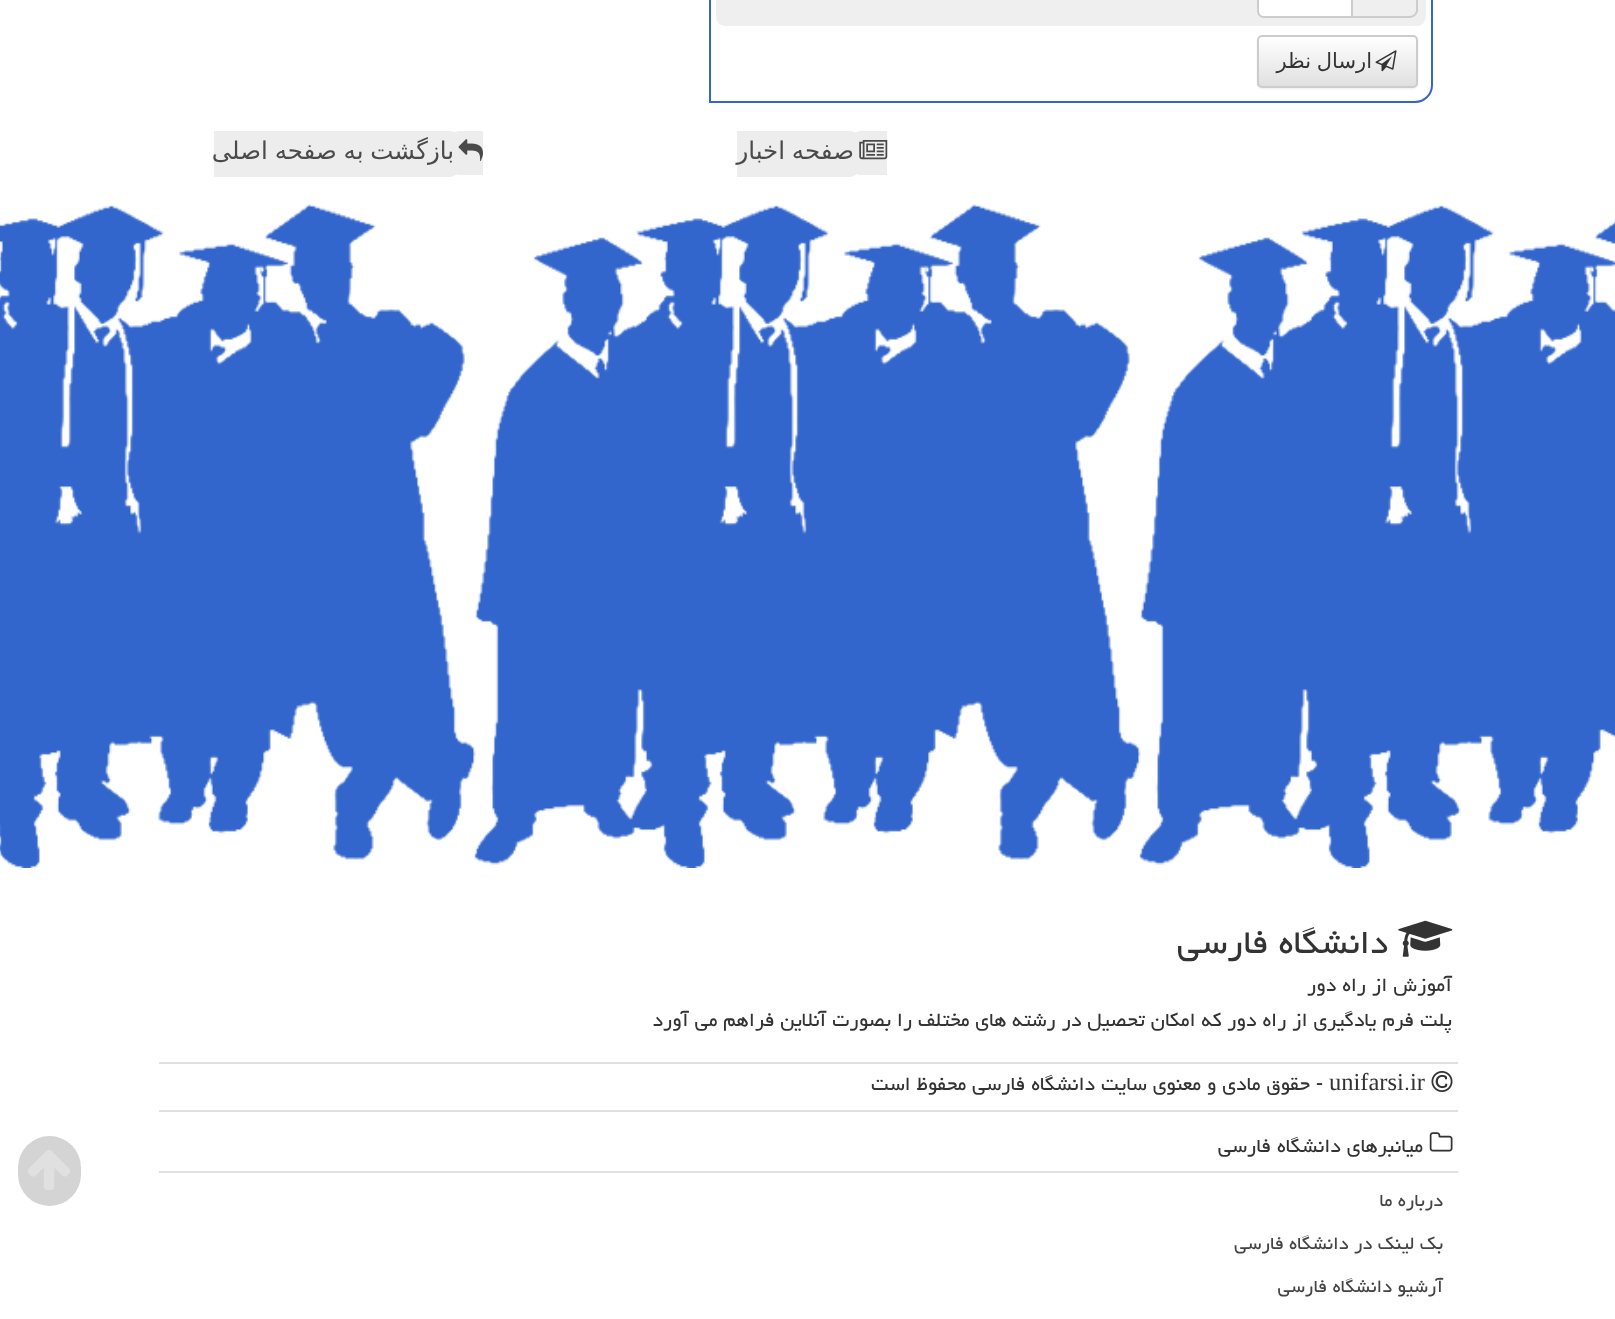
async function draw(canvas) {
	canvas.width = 1615;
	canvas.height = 1319;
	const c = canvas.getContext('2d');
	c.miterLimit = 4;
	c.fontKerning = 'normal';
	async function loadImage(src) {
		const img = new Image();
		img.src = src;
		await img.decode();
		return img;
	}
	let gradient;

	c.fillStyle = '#fff';
	c.fillRect(0, 0, 1615, 1319);
	c.beginPath();
	c.moveTo(727, -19);
	c.lineTo(1432, -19);
	c.lineTo(1432, 85);
	c.bezierCurveTo(1432, 94.5, 1424.5, 102, 1415, 102);
	c.lineTo(710, 102);
	c.lineTo(710, -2);
	c.bezierCurveTo(710, -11.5, 717.5, -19, 727, -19);
	c.closePath();
	c.strokeStyle = '#36c';
	c.lineWidth = 2;
	c.stroke();
	c.fillStyle = '#efefef';
	c.beginPath();
	c.roundRect(716, -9, 710, 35, 9);
	c.fill();
	c.fillStyle = '#ccc';
	c.beginPath();
	c.moveTo(1353, -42);
	c.lineTo(1410, -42);
	c.bezierCurveTo(1414, -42, 1418, -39, 1418, -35);
	c.lineTo(1418, 10);
	c.bezierCurveTo(1418, 14, 1414, 18, 1410, 18);
	c.lineTo(1353, 18);
	c.closePath();
	c.moveTo(1353, -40);
	c.lineTo(1410, -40);
	c.bezierCurveTo(1413, -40, 1416, -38, 1416, -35);
	c.lineTo(1416, 10);
	c.bezierCurveTo(1416, 13, 1413, 16, 1410, 16);
	c.lineTo(1353, 16);
	c.closePath();
	c.fill('evenodd');
	c.fillStyle = '#fff';
	c.beginPath();
	c.moveTo(1264, -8);
	c.lineTo(1352, -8);
	c.lineTo(1352, 17);
	c.lineTo(1264, 17);
	c.bezierCurveTo(1260.5, 17, 1258, 14.5, 1258, 11);
	c.lineTo(1258, -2);
	c.bezierCurveTo(1258, -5.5, 1260.5, -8, 1264, -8);
	c.closePath();
	c.fill();
	c.strokeStyle = '#ccc';
	c.stroke();
	c.fillStyle = '#00000012';
	c.filter = 'blur(1px)';
	c.beginPath();
	c.roundRect(1257, 37, 161, 52, 5);
	c.fill();
	c.filter = 'none';
	c.save();
	c.beginPath();
	c.roundRect(1257, 35, 161, 53, 5);
	c.clip();
	gradient = c.createLinearGradient(1337, 37, 1337, 86);
	gradient.addColorStop(0, '#fff');
	gradient.addColorStop(1, '#e0e0e0');
	c.fillStyle = gradient;
	c.fillRect(1257, 37, 161, 49);
	c.restore();
	c.beginPath();
	c.roundRect(1258, 36, 159, 51, 4);
	c.stroke();
	c.drawImage(await loadImage('img1.png'), 1375, 50, 22, 22);
	c.wordSpacing = '-1px';
	c.direction = 'rtl';
	c.font = '21px DejaVu Sans';
	c.fillStyle = '#333';
	c.fillText('ارسال نظر', 1372, 68);
	c.fillStyle = '#ededed';
	c.beginPath();
	c.roundRect(851, 131, 36, 44, [9, 0, 0, 9]);
	c.fill();
	c.beginPath();
	c.roundRect(737, 131, 122, 46, [0, 9, 9, 0]);
	c.fill();
	c.drawImage(await loadImage('img2.png'), 859, 140, 29, 20);
	c.font = '24.5px DejaVu Sans';
	c.fillStyle = '#4a4a4a';
	c.fillText('صفحه اخبار', 854, 159);
	c.fillStyle = '#ededed';
	c.beginPath();
	c.roundRect(450, 131, 33, 44, [9, 0, 0, 9]);
	c.fill();
	c.beginPath();
	c.roundRect(214, 131, 245, 46, [0, 9, 9, 0]);
	c.fill();
	c.drawImage(await loadImage('img3.png'), 458, 139, 25, 22);
	c.fillStyle = '#4a4a4a';
	c.fillText('بازگشت به صفحه اصلی', 454, 159);
	c.fillStyle = '#d4d4d4';
	c.beginPath();
	c.roundRect(18, 1136, 63, 70, 31.5);
	c.fill();
	c.drawImage(await loadImage('img4.png'), 28, 1150, 42, 40);
	c.drawImage(await loadImage('img5.png'), 0, 204, 1615, 664);
	c.fillStyle = '#e0e0e0';
	c.fillRect(159, 1062, 1299, 2);
	c.drawImage(await loadImage('img6.png'), 1398, 920, 55, 37);
	c.wordSpacing = '0px';
	c.font = '42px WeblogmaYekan';
	c.fillStyle = '#333';
	c.fillText('دانشگاه فارسی', 1388, 953);
	c.font = '24.5px WeblogmaYekan';
	c.fillText('آموزش از راه دور', 1452, 991);
	c.fillText('پلت فرم یادگیری از راه دور که امکان تحصیل در رشته های مختلف را بصورت آنلاین فراهم می آورد', 1452, 1026);
	c.fillStyle = '#e0e0e0';
	c.fillRect(159, 1110, 1299, 2);
	c.drawImage(await loadImage('img7.png'), 1431, 1071, 22, 21);
	c.direction = 'ltr';
	c.font = '24.5px Liberation Serif';
	c.fillStyle = '#333';
	c.fillText('unifarsi ir', 1329, 1090);
	c.direction = 'rtl';
	c.font = '24.5px WeblogmaYekan';
	c.fillText('- حقوق مادی و معنوی سایت دانشگاه فارسی محفوظ است', 1323, 1090);
	c.direction = 'ltr';
	c.fillText('.', 1404, 1090);
	c.fillStyle = '#e0e0e0';
	c.fillRect(159, 1171, 1299, 2);
	c.drawImage(await loadImage('img8.png'), 1429, 1132, 24, 20);
	c.direction = 'rtl';
	c.fillStyle = '#333';
	c.fillText('میانبرهای دانشگاه فارسی', 1423, 1152);
	c.font = '22.75px WeblogmaYekan';
	c.fillStyle = '#444';
	for (const [text, x, y] of [
		['درباره ما', 1443, 1206],
		['بک لینک در دانشگاه فارسی', 1443, 1249],
		['آرشیو دانشگاه فارسی', 1443, 1292],
	]) {
		c.fillText(text, x, y);
	}
}

draw(document.querySelector('canvas'));
